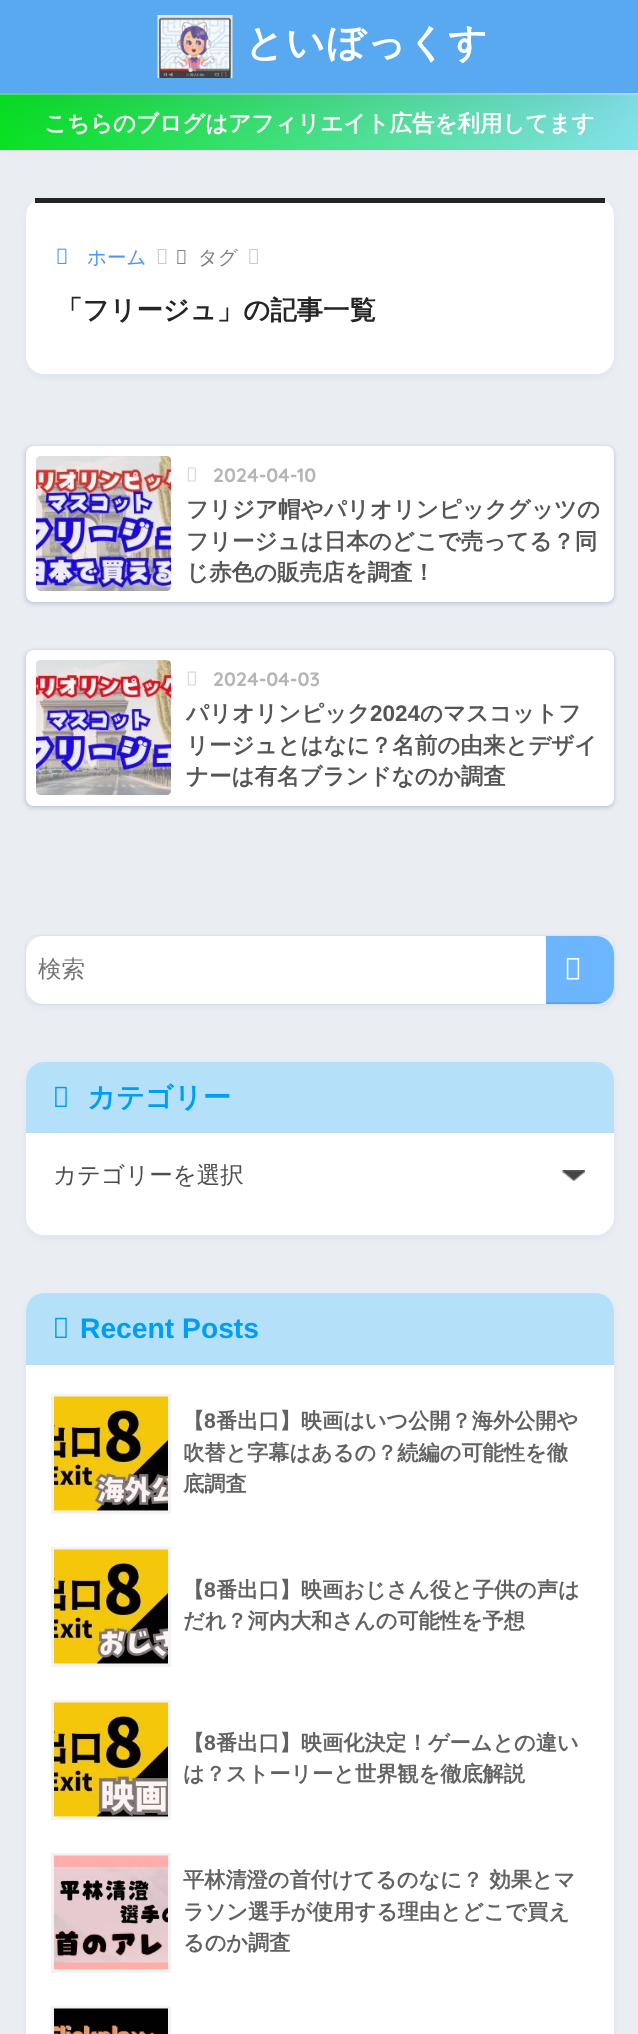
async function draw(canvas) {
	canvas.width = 638;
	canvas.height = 2034;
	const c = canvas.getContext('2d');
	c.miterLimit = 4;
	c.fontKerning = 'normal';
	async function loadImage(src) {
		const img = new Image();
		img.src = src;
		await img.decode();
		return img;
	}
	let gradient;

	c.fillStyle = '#eaedf2';
	c.fillRect(0, 0, 638, 2034);
	gradient = c.createLinearGradient(0, 39, 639, 95);
	gradient.addColorStop(0, '#53eb64');
	gradient.addColorStop(1, '#aaebf2');
	c.fillStyle = gradient;
	c.fillRect(0, 93, 638, 2);
	gradient = c.createLinearGradient(0, 94, 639, 150);
	gradient.addColorStop(0, '#09e222');
	gradient.addColorStop(1, '#85e3ec');
	c.fillStyle = gradient;
	c.fillRect(0, 95, 638, 55);
	c.fillStyle = '#000c4226';
	c.filter = 'blur(34px)';
	c.beginPath();
	c.rect(0, 0, 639, 93);
	c.fill();
	c.filter = 'none';
	c.fillStyle = '#58a9ef';
	c.fillRect(0, 0, 638, 93);
	c.drawImage(await loadImage('img1.png'), 157, 15, 76, 63);
	c.letterSpacing = '1.5px';
	c.font = 'bold 38.25px WenQuanYi Zen Hei';
	c.fillStyle = '#fff';
	c.fillText('といぼっくす', 245, 56);
	c.letterSpacing = '0px';
	c.font = 'bold 22.5px WenQuanYi Zen Hei';
	c.fillText('こちらのブログはアフィリエイト広告を利用してます', 44, 131);
	c.fillStyle = '#4385bb12';
	c.filter = 'blur(3px)';
	c.beginPath();
	c.roundRect(26, 201, 588, 176, 18);
	c.fill();
	c.filter = 'none';
	c.fillStyle = '#fff';
	c.beginPath();
	c.roundRect(26, 198, 588, 176, 18);
	c.fill();
	c.fillStyle = '#252525';
	c.fillRect(35, 198, 570, 5);
	c.drawImage(await loadImage('img2.png'), 57, 248, 10, 16);
	c.font = '500 19.5px WenQuanYi Zen Hei';
	c.fillStyle = '#4f96f6';
	c.fillText('ホーム', 87, 264);
	c.drawImage(await loadImage('img3.png'), 157, 249, 10, 15);
	c.drawImage(await loadImage('img4.png'), 177, 250, 9, 14);
	c.fillStyle = '#808080';
	c.fillText('タグ', 198, 264);
	c.drawImage(await loadImage('img5.png'), 249, 249, 9, 15);
	c.font = 'bold 26.4px WenQuanYi Zen Hei';
	c.fillStyle = '#252525';
	c.fillText('「フリージュ」の記事一覧', 56, 319);
	c.fillStyle = '#182c541a';
	c.filter = 'blur(2px)';
	c.beginPath();
	c.roundRect(24, 446, 591, 159, 9);
	c.fill();
	c.filter = 'none';
	c.filter = 'blur(1.5px)';
	c.beginPath();
	c.roundRect(26, 447, 588, 156, 8);
	c.fill();
	c.filter = 'none';
	c.fillStyle = '#fff';
	c.beginPath();
	c.roundRect(26, 446, 588, 156, 8);
	c.fill();
	c.drawImage(await loadImage('img6.png'), 36, 456, 135, 135);
	c.drawImage(await loadImage('img7.png'), 187, 467, 9, 15);
	c.font = 'bold 19.5px Quicksand';
	c.fillStyle = '#b5b5b5';
	c.fillText('2024-04-10', 213, 482);
	c.font = 'bold 22.5px WenQuanYi Zen Hei';
	c.fillStyle = '#555';
	for (const [text, x, y] of [
		['フリジア帽やパリオリンピックグッツの', 186, 517],
		['フリージュは日本のどこで売ってる？同', 186, 549],
		['じ赤色の販売店を調査！', 186, 580],
	]) {
		c.fillText(text, x, y);
	}
	c.fillStyle = '#182c541a';
	c.filter = 'blur(2px)';
	c.beginPath();
	c.roundRect(24, 650, 591, 159, 9);
	c.fill();
	c.filter = 'none';
	c.filter = 'blur(1.5px)';
	c.beginPath();
	c.roundRect(26, 651, 588, 156, 8);
	c.fill();
	c.filter = 'none';
	c.fillStyle = '#fff';
	c.beginPath();
	c.roundRect(26, 650, 588, 156, 8);
	c.fill();
	c.drawImage(await loadImage('img8.png'), 36, 660, 135, 135);
	c.drawImage(await loadImage('img7.png'), 187, 671, 9, 15);
	c.font = 'bold 19.5px Quicksand';
	c.fillStyle = '#b5b5b5';
	c.fillText('2024-04-03', 213, 686);
	c.font = 'bold 22.5px WenQuanYi Zen Hei';
	c.fillStyle = '#555';
	c.fillText('パリオリンピック', 186, 721);
	c.font = 'bold 22.5px Liberation Sans';
	c.fillText('2024', 370, 721);
	c.font = 'bold 22.5px WenQuanYi Zen Hei';
	for (const [text, x, y] of [
		['のマスコットフ', 420, 721],
		['リージュとはなに？名前の由来とデザイ', 186, 753],
		['ナーは有名ブランドなのか調査', 186, 784],
	]) {
		c.fillText(text, x, y);
	}
	c.fillStyle = '#4385bb12';
	c.filter = 'blur(3px)';
	c.beginPath();
	c.roundRect(26, 939, 588, 68, 18);
	c.fill();
	c.filter = 'none';
	c.save();
	c.beginPath();
	c.moveTo(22, 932);
	c.lineTo(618, 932);
	c.lineTo(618, 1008);
	c.lineTo(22, 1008);
	c.closePath();
	c.moveTo(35, 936);
	c.lineTo(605, 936);
	c.bezierCurveTo(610, 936, 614, 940, 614, 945);
	c.lineTo(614, 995);
	c.bezierCurveTo(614, 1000, 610, 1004, 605, 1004);
	c.lineTo(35, 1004);
	c.bezierCurveTo(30, 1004, 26, 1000, 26, 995);
	c.lineTo(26, 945);
	c.bezierCurveTo(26, 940, 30, 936, 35, 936);
	c.closePath();
	c.clip('evenodd');
	c.fillStyle = '#001e641a';
	c.filter = 'blur(1px)';
	c.beginPath();
	c.roundRect(26, 936, 588, 68, 9);
	c.fill();
	c.filter = 'none';
	c.restore();
	c.save();
	c.beginPath();
	c.roundRect(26, 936, 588, 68, 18);
	c.clip();
	c.fillStyle = '#000c421a';
	c.filter = 'blur(10px)';
	c.beginPath();
	c.roundRect(30, 950, 579, 58, 5);
	c.fill();
	c.filter = 'none';
	c.restore();
	c.fillStyle = '#fff';
	c.beginPath();
	c.roundRect(26, 936, 588, 68, 18);
	c.fill();
	c.font = '500 23.5px WenQuanYi Zen Hei';
	c.fillStyle = '#757575';
	c.fillText('検索', 38, 977);
	c.fillStyle = '#6bb6ff';
	c.beginPath();
	c.roundRect(546, 936, 68, 68, [0, 18, 18, 0]);
	c.fill();
	c.save();
	c.beginPath();
	c.roundRect(26, 936, 588, 68, 18);
	c.clip();
	c.fillStyle = '#0000001a';
	c.fillRect(546, 1002, 63, 2);
	c.restore();
	c.drawImage(await loadImage('img9.png'), 566, 958, 14, 22);
	c.fillStyle = '#4385bb12';
	c.filter = 'blur(3px)';
	c.beginPath();
	c.roundRect(26, 1065, 588, 173, 18);
	c.fill();
	c.filter = 'none';
	c.fillStyle = '#fff';
	c.beginPath();
	c.roundRect(26, 1062, 588, 173, 18);
	c.fill();
	c.fillStyle = '#b4e0fa';
	c.beginPath();
	c.roundRect(26, 1062, 588, 71, [18, 18, 0, 0]);
	c.fill();
	c.drawImage(await loadImage('img10.png'), 55, 1086, 12, 21);
	c.font = 'bold 28.25px WenQuanYi Zen Hei';
	c.fillStyle = '#009ef3';
	c.fillText('カテゴリー', 87, 1107);
	c.drawImage(await loadImage('img11.png'), 562, 1170, 23, 11);
	c.font = '500 23.5px WenQuanYi Zen Hei';
	c.fillStyle = '#4d4d4d';
	c.fillText('カテゴリーを選択', 53, 1183);
	c.fillStyle = '#4385bb12';
	c.filter = 'blur(3px)';
	c.beginPath();
	c.roundRect(26, 1296, 588, 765, 18);
	c.fill();
	c.filter = 'none';
	c.fillStyle = '#fff';
	c.beginPath();
	c.roundRect(26, 1293, 588, 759, 18);
	c.fill();
	c.fillStyle = '#b4e0fa';
	c.beginPath();
	c.roundRect(26, 1293, 588, 72, [18, 18, 0, 0]);
	c.fill();
	c.drawImage(await loadImage('img10.png'), 55, 1317, 12, 21);
	c.font = 'bold 28.25px Liberation Sans';
	c.fillStyle = '#009ef3';
	c.fillText('Recent Posts', 80, 1338);
	c.strokeStyle = '#f3f3f3';
	c.lineWidth = 3;
	c.strokeRect(52.5, 1395.5, 117, 117);
	c.drawImage(await loadImage('img12.png'), 54, 1396, 114, 115);
	c.font = 'bold 21.2px WenQuanYi Zen Hei';
	c.fillStyle = '#626262';
	c.fillText('【', 183, 1428);
	c.font = 'bold 21.2px Liberation Sans';
	c.fillText('8', 204, 1428);
	c.font = 'bold 21.2px WenQuanYi Zen Hei';
	for (const [text, x, y] of [
		['番出口】映画はいつ公開？海外公開や', 216, 1428],
		['吹替と字幕はあるの？続編の可能性を徹', 183, 1460],
		['底調査', 183, 1491],
	]) {
		c.fillText(text, x, y);
	}
	c.strokeRect(52.5, 1548.5, 117, 117);
	c.drawImage(await loadImage('img13.png'), 54, 1549, 114, 115);
	c.fillText('【', 183, 1597);
	c.font = 'bold 21.2px Liberation Sans';
	c.fillText('8', 204, 1597);
	c.font = 'bold 21.2px WenQuanYi Zen Hei';
	c.fillText('番出口】映画おじさん役と子供の声は', 216, 1597);
	c.fillText('だれ？河内大和さんの可能性を予想', 183, 1628);
	c.strokeRect(52.5, 1701.5, 117, 117);
	c.drawImage(await loadImage('img14.png'), 54, 1702, 114, 115);
	c.fillText('【', 183, 1750);
	c.font = 'bold 21.2px Liberation Sans';
	c.fillText('8', 204, 1750);
	c.font = 'bold 21.2px WenQuanYi Zen Hei';
	c.fillText('番出口】映画化決定！ゲームとの違い', 216, 1750);
	c.fillText('は？ストーリーと世界観を徹底解説', 183, 1781);
	c.strokeRect(52.5, 1854.5, 117, 117);
	c.drawImage(await loadImage('img15.png'), 54, 1855, 114, 115);
	for (const [text, x, y] of [
		['平林清澄の首付けてるのなに？ 効果とマ', 183, 1887],
		['ラソン選手が使用する理由とどこで買え', 183, 1919],
		['るのか調査', 183, 1950],
	]) {
		c.fillText(text, x, y);
	}
	c.strokeRect(52.5, 2007.5, 117, 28);
	c.drawImage(await loadImage('img16.png'), 54, 2008, 114, 26);
}

draw(document.querySelector('canvas'));
